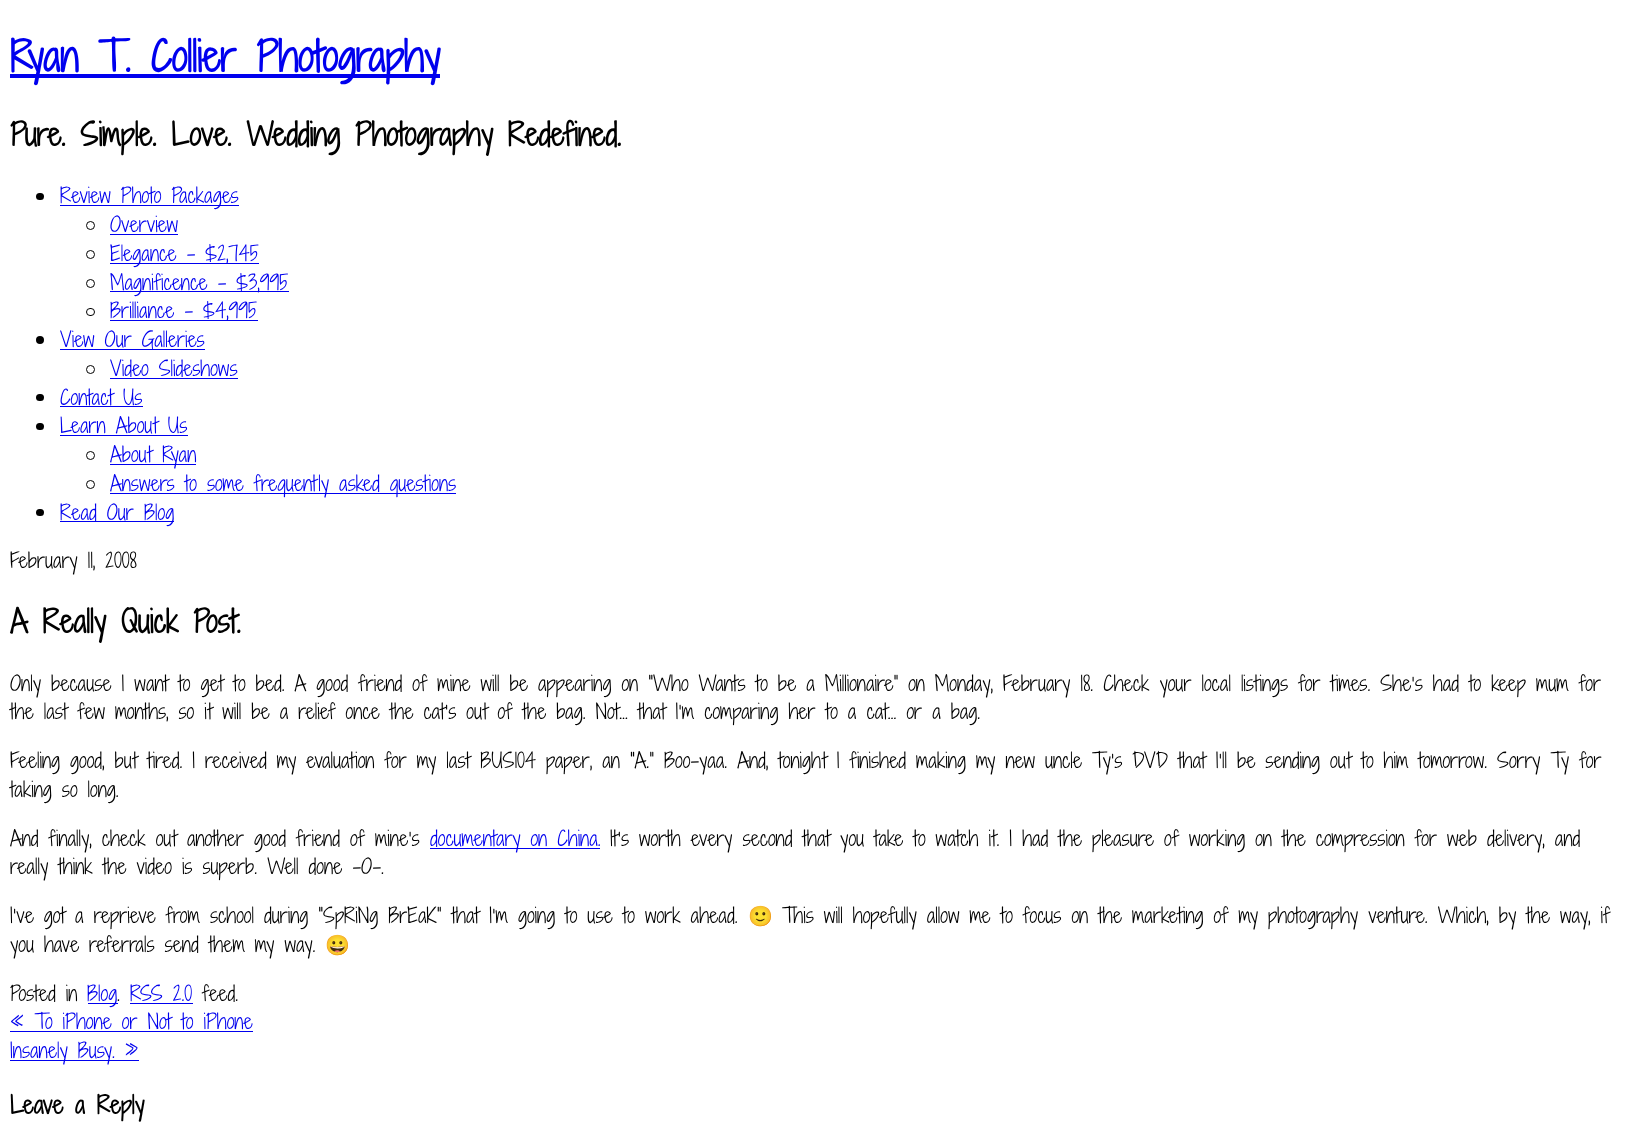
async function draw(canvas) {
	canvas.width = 1629;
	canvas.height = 1138;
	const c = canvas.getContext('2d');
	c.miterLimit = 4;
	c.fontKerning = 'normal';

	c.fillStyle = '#fff';
	c.fillRect(0, 0, 1629, 1138);
	c.fillStyle = '#00e';
	c.fillRect(10, 74, 430, 4);
	c.font = 'bold 40px Shadows Into Light Two';
	c.fillText('Ryan T. Collier Photography', 10, 72);
	c.font = 'bold 30px Shadows Into Light Two';
	c.fillStyle = '#000';
	c.fillText('Pure. Simple. Love. Wedding Photography Redefined.', 10, 146);
	c.beginPath();
	c.roundRect(36, 193, 8, 7, 3.5);
	c.fill();
	c.fillStyle = '#00e';
	c.fillRect(60, 205, 179, 1);
	c.font = '300 20px Shadows Into Light Two';
	c.fillText('Review Photo Packages', 60, 203);
	c.beginPath();
	c.arc(90.5, 225.5, 4, 0, 2 * Math.PI);
	c.strokeStyle = '#000';
	c.stroke();
	c.fillText('Overview', 110, 232);
	c.fillRect(110, 234, 68, 1);
	c.beginPath();
	c.arc(90.5, 254.5, 4, 0, 2 * Math.PI);
	c.stroke();
	c.fillRect(110, 263, 149, 1);
	c.fillText('Elegance – $2,745', 110, 261);
	c.beginPath();
	c.arc(90.5, 283.5, 4, 0, 2 * Math.PI);
	c.stroke();
	c.fillRect(110, 291, 179, 1);
	c.fillText('Magnificence – $3,995', 110, 290);
	c.beginPath();
	c.roundRect(86.5, 308.5, 8, 7, 3.5);
	c.stroke();
	c.fillRect(110, 320, 148, 1);
	c.fillText('Brilliance – $4,995', 110, 318);
	c.fillStyle = '#000';
	c.beginPath();
	c.arc(40, 340, 4, 0, 2 * Math.PI);
	c.fill();
	c.fillStyle = '#00e';
	c.fillRect(60, 349, 145, 1);
	c.fillText('View Our Galleries', 60, 347);
	c.beginPath();
	c.arc(90.5, 369.5, 4, 0, 2 * Math.PI);
	c.stroke();
	c.fillText('Video Slideshows', 110, 376);
	c.fillRect(110, 378, 128, 1);
	c.fillStyle = '#000';
	c.beginPath();
	c.roundRect(36, 394, 8, 7, 3.5);
	c.fill();
	c.fillStyle = '#00e';
	c.fillText('Contact Us', 60, 405);
	c.fillRect(60, 406, 83, 1);
	c.fillStyle = '#000';
	c.beginPath();
	c.roundRect(36, 423, 8, 7, 3.5);
	c.fill();
	c.fillStyle = '#00e';
	c.fillText('Learn About Us', 60, 433);
	c.fillRect(60, 435, 128, 1);
	c.beginPath();
	c.arc(90.5, 455.5, 4, 0, 2 * Math.PI);
	c.stroke();
	c.fillRect(110, 464, 86, 1);
	c.fillText('About Ryan', 110, 462);
	c.beginPath();
	c.arc(90.5, 484.5, 4, 0, 2 * Math.PI);
	c.stroke();
	c.fillRect(110, 493, 346, 1);
	c.fillText('Answers to some frequently asked questions', 110, 491);
	c.fillStyle = '#000';
	c.beginPath();
	c.roundRect(36, 509, 8, 7, 3.5);
	c.fill();
	c.fillStyle = '#00e';
	c.fillRect(60, 521, 114, 1);
	c.fillText('Read Our Blog', 60, 520);
	c.fillStyle = '#000';
	c.fillText('February 11, 2008', 10, 568);
	c.font = 'bold 30px Shadows Into Light Two';
	c.fillText('A Really Quick Post.', 10, 633);
	c.font = '300 20px Shadows Into Light Two';
	for (const [text, x, y] of [
		['Only because I want to get to bed. A good friend of mine will be appearing on “Who Wants to be a Millionaire” on Monday, February 18. Check your local listings for times. She’s had to keep mum for', 10, 691],
		['the last few months, so it will be a relief once the cat’s out of the bag. Not… that I’m comparing her to a cat… or a bag.', 10, 719],
		['Feeling good, but tired. I received my evaluation for my last BUS104 paper, an “A.” Boo-yaa. And, tonight I finished making my new uncle Ty’s DVD that I’ll be sending out to him tomorrow. Sorry Ty for', 10, 768],
		['taking so long.', 10, 797],
		['And finally, check out another good friend of mine’s', 10, 846],
	]) {
		c.fillText(text, x, y);
	}
	c.fillStyle = '#00e';
	c.fillRect(430, 848, 170, 1);
	c.fillText('documentary on China.', 430, 846);
	c.fillStyle = '#000';
	for (const [text, x, y] of [
		['It’s worth every second that you take to watch it. I had the pleasure of working on the compression for web delivery, and', 610, 846],
		['really think the video is superb. Well done -O-.', 10, 874],
		['I’ve got a reprieve from school during “SpRiNg BrEaK” that I’m going to use to work ahead.', 10, 923],
	]) {
		c.fillText(text, x, y);
	}
	c.font = '20px Noto Color Emoji';
	c.fillText('🙂', 748, 923);
	c.font = '300 20px Shadows Into Light Two';
	c.fillText('This will hopefully allow me to focus on the marketing of my photography venture. Which, by the way, if', 782, 923);
	c.fillText('you have referrals send them my way.', 10, 952);
	c.font = '20px Noto Color Emoji';
	c.fillText('😀', 325, 952);
	c.font = '300 20px Shadows Into Light Two';
	c.fillText('Posted in', 10, 1001);
	c.fillStyle = '#00e';
	c.fillRect(88, 1003, 30, 1);
	c.fillText('Blog', 87, 1001);
	c.fillStyle = '#000';
	c.fillText('.', 117, 1001);
	c.fillStyle = '#00e';
	c.fillText('RSS 2.0', 130, 1001);
	c.fillRect(130, 1003, 63, 1);
	c.fillStyle = '#000';
	c.fillText('feed.', 202, 1001);
	c.fillStyle = '#00e';
	c.fillText('« To iPhone or Not to iPhone', 10, 1029);
	c.fillRect(10, 1031, 243, 1);
	c.fillRect(10, 1060, 129, 1);
	c.fillText('Insanely Busy. »', 10, 1058);
	c.font = 'bold 23.5px Shadows Into Light Two';
	c.fillStyle = '#000';
	c.fillText('Leave a Reply', 10, 1114);
}

draw(document.querySelector('canvas'));
